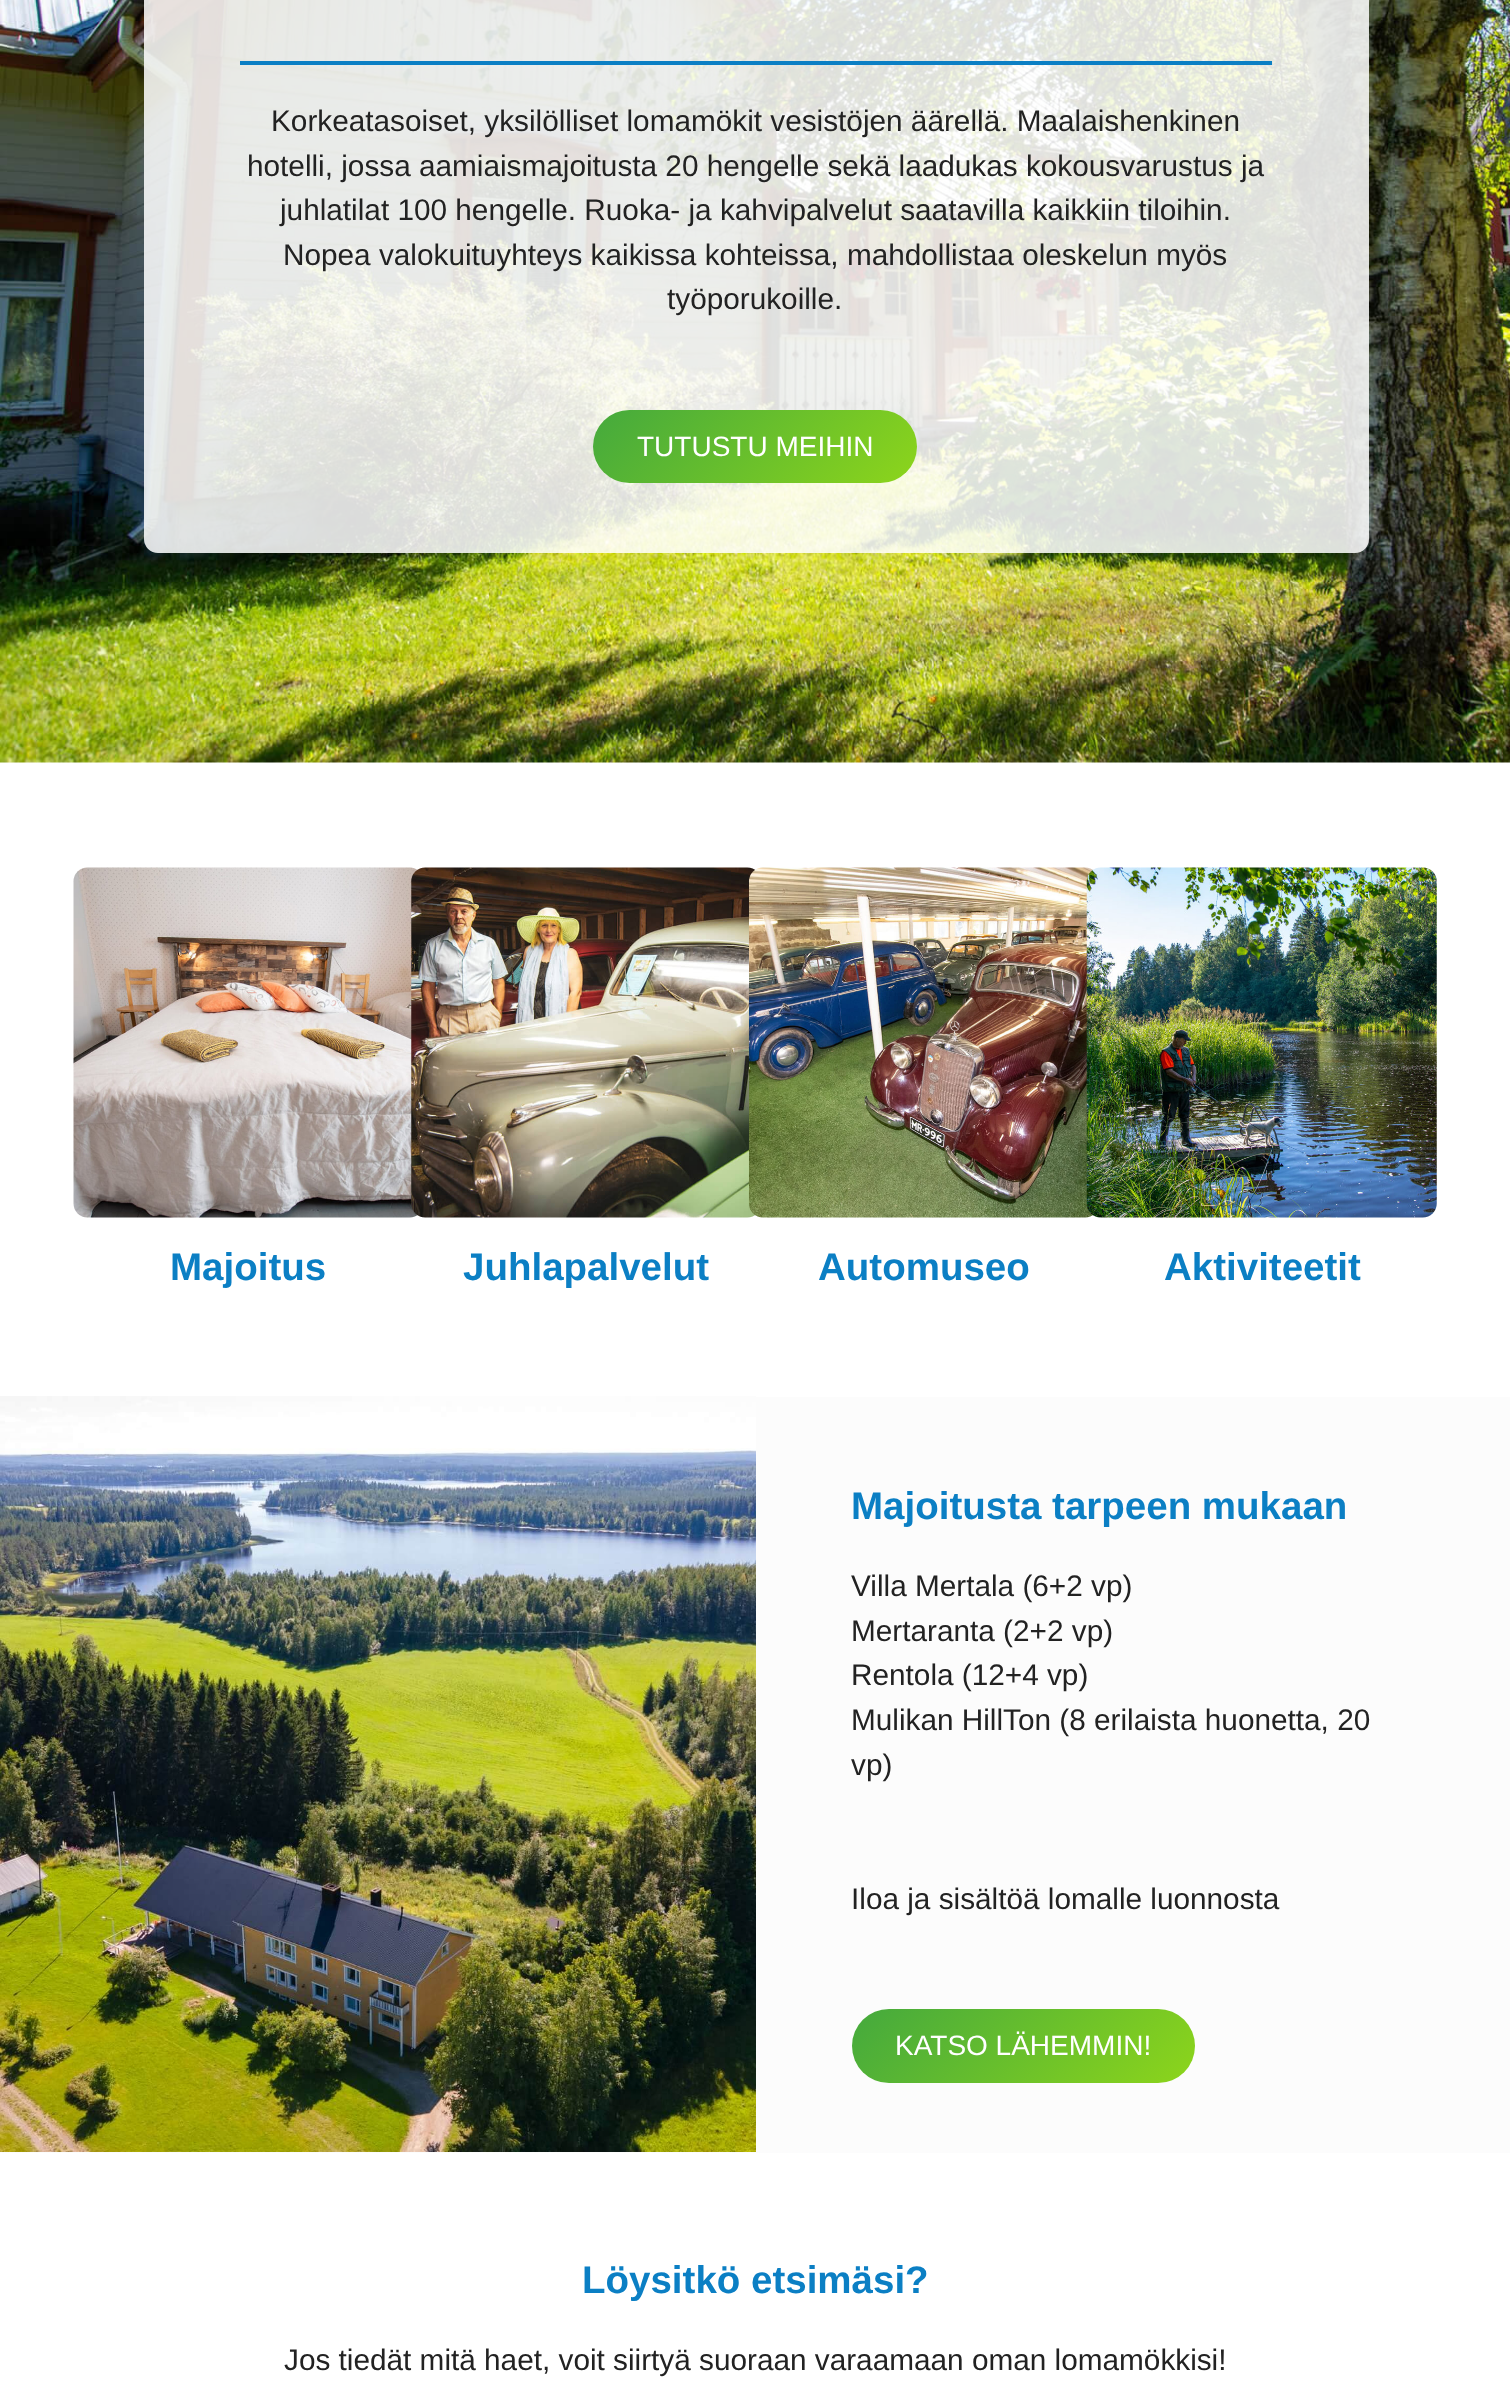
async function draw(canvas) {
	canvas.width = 1510;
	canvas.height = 2397;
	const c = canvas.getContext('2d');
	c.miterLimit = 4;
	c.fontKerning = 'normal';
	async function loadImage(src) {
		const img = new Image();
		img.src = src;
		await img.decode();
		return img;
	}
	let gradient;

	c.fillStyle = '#fff';
	c.fillRect(0, 0, 1510, 2397);
	c.drawImage(await loadImage('img1.png'), 0, 0, 1510, 763);
	c.fillStyle = '#ffffffdb';
	c.beginPath();
	c.roundRect(144, -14, 1225, 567, 14);
	c.fill();
	c.fillStyle = '#0b7fc4';
	c.fillRect(240, 61, 1032, 4);
	c.font = '29.75px Liberation Sans';
	c.fillStyle = '#222';
	for (const [text, x, y] of [
		['Korkeatasoiset, yksilölliset lomamökit vesistöjen äärellä. Maalaishenkinen', 271, 131],
		['hotelli, jossa aamiaismajoitusta 20 hengelle sekä laadukas kokousvarustus ja', 247, 176],
		['juhlatilat 100 hengelle. Ruoka- ja kahvipalvelut saatavilla kaikkiin tiloihin.', 280, 220],
		['Nopea valokuituyhteys kaikissa kohteissa, mahdollistaa oleskelun myös', 283, 265],
		['työporukoille.', 667, 309],
	]) {
		c.fillText(text, x, y);
	}
	gradient = c.createLinearGradient(656, 347, 854, 546);
	gradient.addColorStop(0, '#44a93d');
	gradient.addColorStop(1, '#8dd51b');
	c.fillStyle = gradient;
	c.beginPath();
	c.roundRect(593, 410, 324, 73, 36.5);
	c.fill();
	c.font = '28px Liberation Sans';
	c.fillStyle = '#fff';
	c.fillText('TUTUSTU MEIHIN', 637, 456);
	c.drawImage(await loadImage('img2.png'), 73, 867, 345, 351);
	c.font = 'bold 38.5px Liberation Sans';
	c.fillStyle = '#0b7fc4';
	c.fillText('Majoitus', 170, 1280);
	c.drawImage(await loadImage('img3.png'), 411, 867, 345, 351);
	c.fillText('Juhlapalvelut', 463, 1280);
	c.drawImage(await loadImage('img4.png'), 748, 867, 345, 351);
	c.fillText('Automuseo', 818, 1280);
	c.drawImage(await loadImage('img5.png'), 1086, 867, 351, 351);
	c.fillText('Aktiviteetit', 1164, 1280);
	c.fillStyle = '#fcfcfc';
	c.fillRect(0, 1397, 1510, 756);
	c.drawImage(await loadImage('img6.png'), 0, 1396, 756, 756);
	c.fillStyle = '#0b7fc4';
	c.fillText('Majoitusta tarpeen mukaan', 851, 1519);
	c.font = '29.75px Liberation Sans';
	c.fillStyle = '#222';
	for (const [text, x, y] of [
		['Villa Mertala (6+2 vp)', 851, 1596],
		['Mertaranta (2+2 vp)', 851, 1641],
		['Rentola (12+4 vp)', 851, 1685],
		['Mulikan HillTon (8 erilaista huonetta, 20', 851, 1730],
		['vp)', 851, 1775],
		['Iloa ja sisältöä lomalle luonnosta', 851, 1909],
	]) {
		c.fillText(text, x, y);
	}
	gradient = c.createLinearGradient(920, 1942, 1128, 2150);
	gradient.addColorStop(0, '#44a93d');
	gradient.addColorStop(1, '#8dd51b');
	c.fillStyle = gradient;
	c.beginPath();
	c.roundRect(852, 2009, 343, 74, 37);
	c.fill();
	c.font = '28px Liberation Sans';
	c.fillStyle = '#fff';
	c.fillText('KATSO LÄHEMMIN!', 895, 2055);
	c.font = 'bold 38.5px Liberation Sans';
	c.fillStyle = '#0b7fc4';
	c.fillText('Löysitkö etsimäsi?', 582, 2293);
	c.font = '29.75px Liberation Sans';
	c.fillStyle = '#222';
	c.fillText('Jos tiedät mitä haet, voit siirtyä suoraan varaamaan oman lomamökkisi!', 284, 2370);
}

draw(document.querySelector('canvas'));
